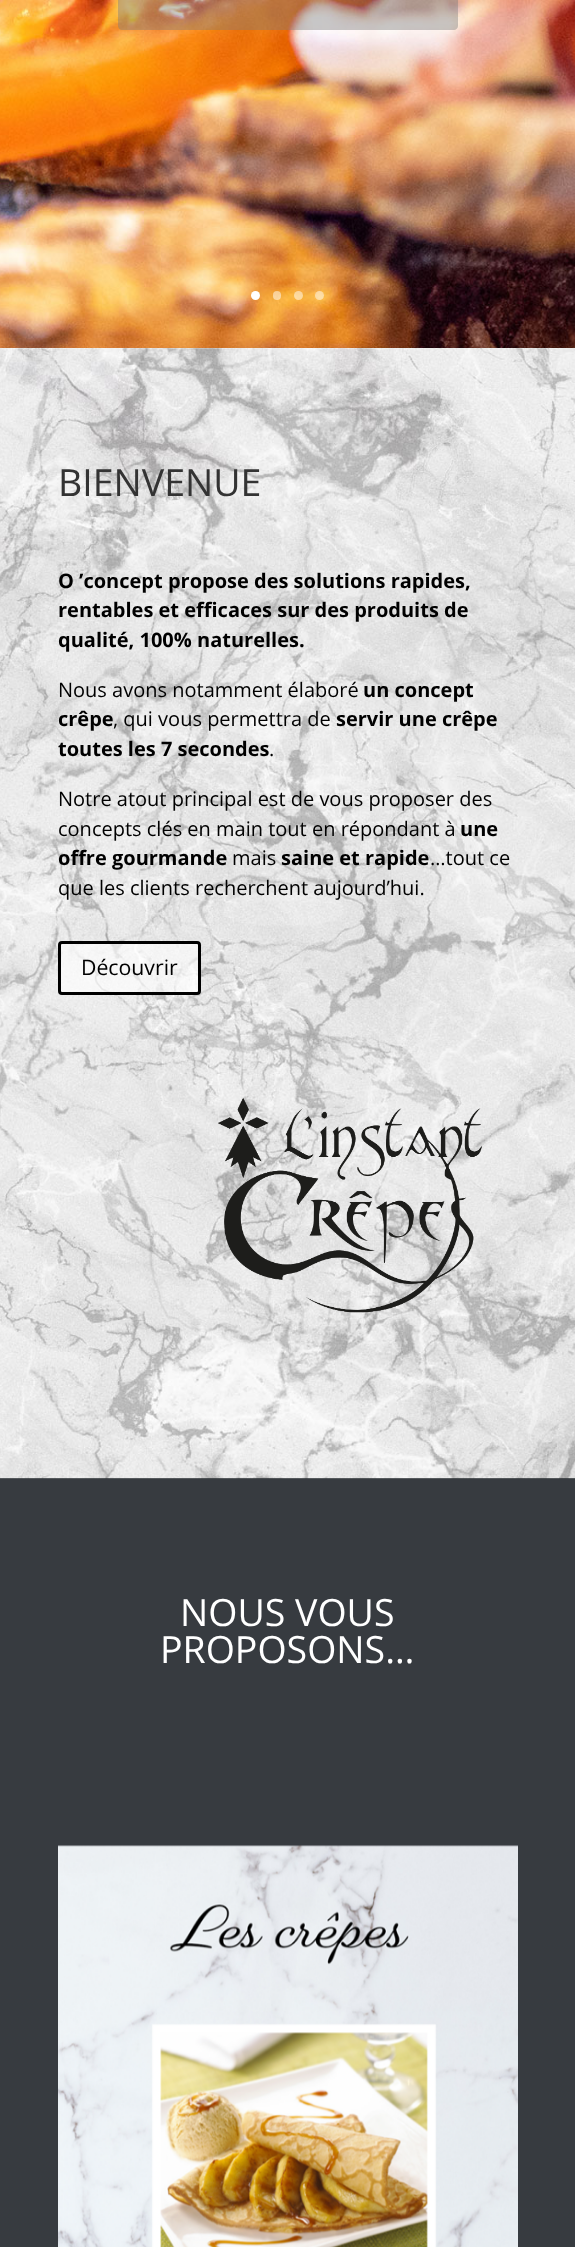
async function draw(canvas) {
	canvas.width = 575;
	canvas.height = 2247;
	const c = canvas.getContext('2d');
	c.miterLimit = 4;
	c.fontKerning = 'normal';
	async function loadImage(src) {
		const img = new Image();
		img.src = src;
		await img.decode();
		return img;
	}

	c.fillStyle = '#fff';
	c.fillRect(0, 0, 575, 2247);
	c.drawImage(await loadImage('img1.png'), 0, 0, 575, 349);
	c.fillStyle = '#7c7c7c6b';
	c.beginPath();
	c.moveTo(118, -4);
	c.lineTo(458, -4);
	c.lineTo(458, 26);
	c.bezierCurveTo(458, 28, 456, 30, 454, 30);
	c.lineTo(122, 30);
	c.bezierCurveTo(120, 30, 118, 28, 118, 26);
	c.closePath();
	c.fill();
	c.fillStyle = '#fff';
	c.beginPath();
	c.arc(255.5, 295.5, 4.5, 0, 2 * Math.PI);
	c.fill();
	c.fillStyle = '#ffffff80';
	c.beginPath();
	c.roundRect(273, 291, 8, 9, 4);
	c.fill();
	c.beginPath();
	c.arc(298.5, 295.5, 4.5, 0, 2 * Math.PI);
	c.fill();
	c.beginPath();
	c.arc(319.5, 295.5, 4.5, 0, 2 * Math.PI);
	c.fill();
	c.fillStyle = '#23282d';
	c.fillRect(0, 1478, 575, 1);
	c.drawImage(await loadImage('img2.png'), 0, 348, 575, 1131);
	c.font = '37.5px Open Sans';
	c.fillStyle = '#333';
	c.fillText('BIENVENUE', 58, 496);
	c.font = 'bold 20px Open Sans';
	c.fillStyle = '#000';
	for (const [text, x, y] of [
		['O ’concept propose des solutions rapides,', 58, 588],
		['rentables et efficaces sur des produits de', 58, 617],
		['qualité, 100% naturelles.', 58, 647],
	]) {
		c.fillText(text, x, y);
	}
	c.font = '20px Open Sans';
	c.fillText('Nous avons notamment élaboré', 58, 697);
	c.font = 'bold 20px Open Sans';
	c.fillText('un concept', 363, 697);
	c.fillText('crêpe', 58, 726);
	c.font = '20px Open Sans';
	c.fillText(', qui vous permettra de', 113, 726);
	c.font = 'bold 20px Open Sans';
	c.fillText('servir une crêpe', 336, 726);
	c.fillText('toutes les 7 secondes', 58, 756);
	c.font = '20px Open Sans';
	for (const [text, x, y] of [
		['.', 269, 756],
		['Notre atout principal est de vous proposer des', 58, 806],
		['concepts clés en main tout en répondant à', 58, 836],
	]) {
		c.fillText(text, x, y);
	}
	c.font = 'bold 20px Open Sans';
	c.fillText('une', 460, 836);
	c.fillText('offre gourmande', 58, 865);
	c.font = '20px Open Sans';
	c.fillText('mais', 232, 865);
	c.font = 'bold 20px Open Sans';
	c.fillText('saine et rapide', 281, 865);
	c.font = '20px Open Sans';
	c.fillText('…tout ce', 430, 865);
	c.fillText('que les clients recherchent aujourd’hui.', 58, 895);
	c.fillStyle = '#ffffffa1';
	c.beginPath();
	c.roundRect(59.5, 942.5, 140, 51, 2.5);
	c.fill();
	c.strokeStyle = '#000';
	c.lineWidth = 3;
	c.stroke();
	c.font = '21.25px Open Sans';
	c.fillStyle = '#000';
	c.fillText('Découvrir', 81, 975);
	c.drawImage(await loadImage('img3.png'), 218, 1097, 264, 216);
	c.fillStyle = '#373b40';
	c.fillRect(0, 1479, 575, 768);
	c.font = '37.5px Open Sans';
	c.fillStyle = '#fff';
	c.fillText('NOUS VOUS', 180, 1626);
	c.fillText('PROPOSONS…', 160, 1663);
	c.drawImage(await loadImage('img4.png'), 58, 1845, 460, 402);
}

draw(document.querySelector('canvas'));
